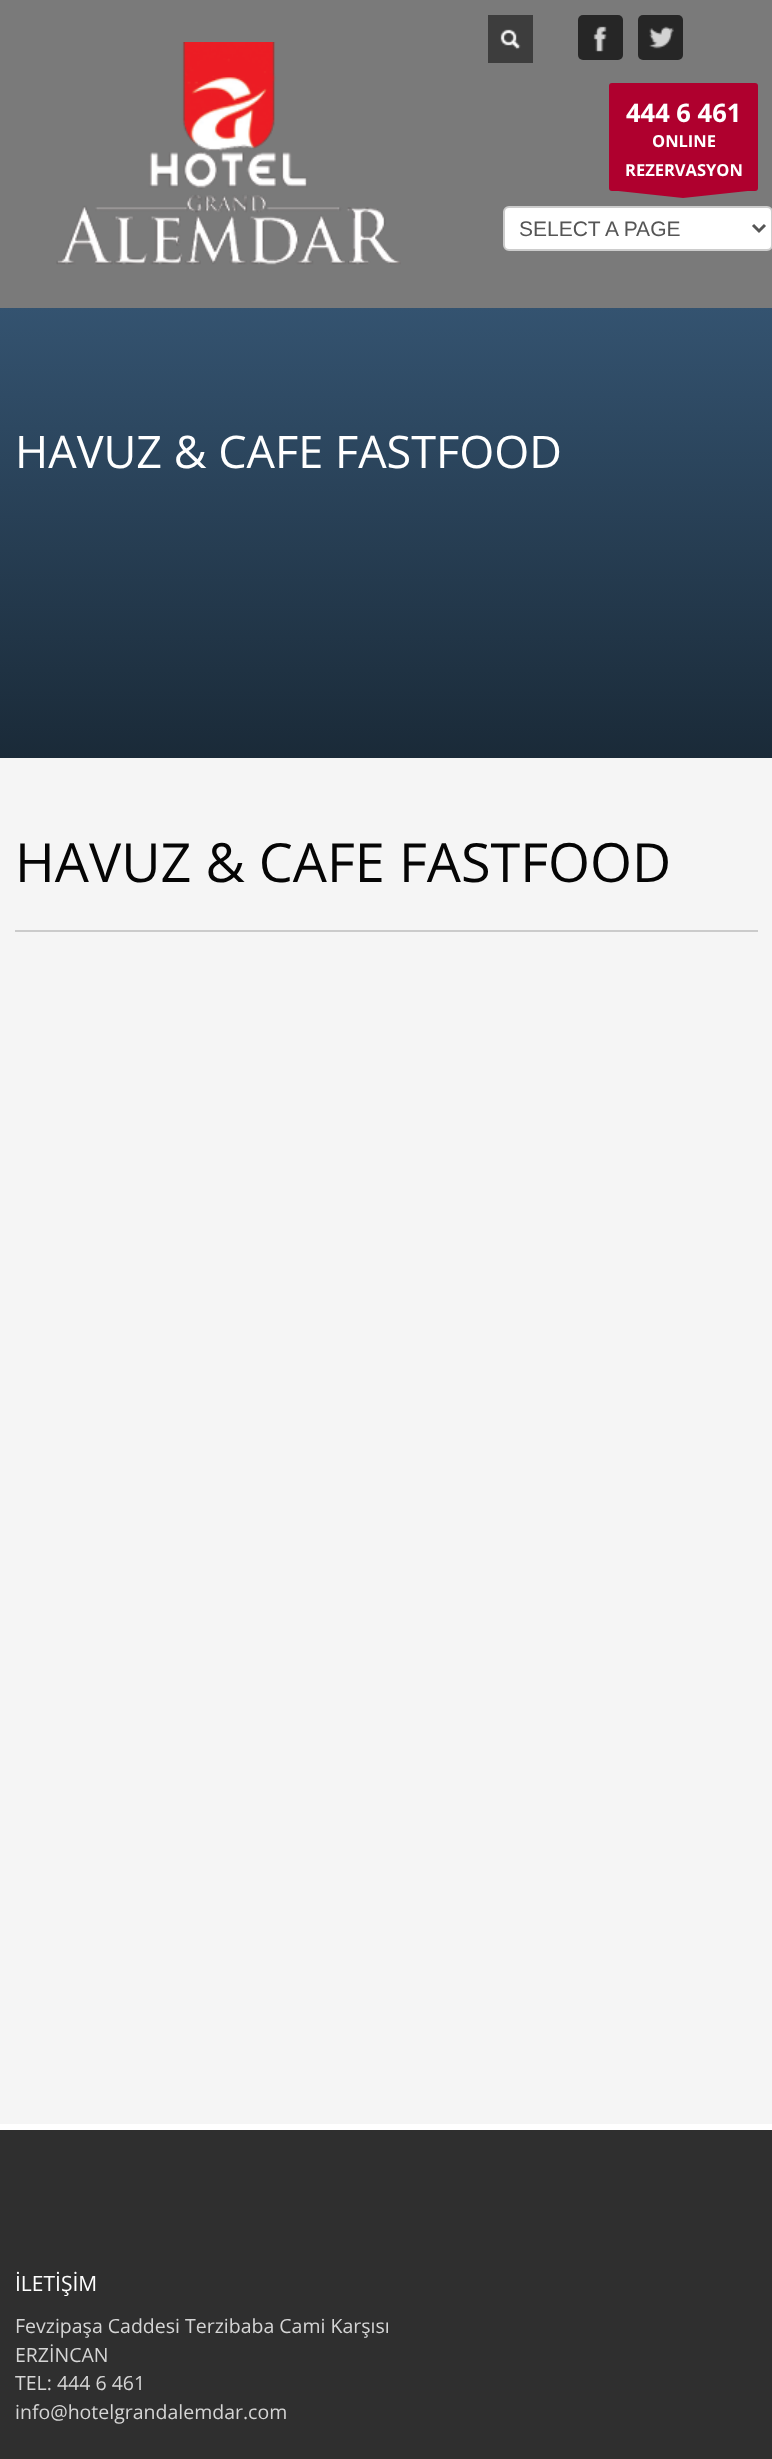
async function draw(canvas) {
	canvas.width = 772;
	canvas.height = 2459;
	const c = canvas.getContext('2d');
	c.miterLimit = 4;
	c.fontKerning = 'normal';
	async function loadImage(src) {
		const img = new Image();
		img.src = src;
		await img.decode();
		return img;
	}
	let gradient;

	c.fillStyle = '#f5f5f5';
	c.fillRect(0, 0, 772, 2459);
	c.fillStyle = '#7a7a7a';
	c.fillRect(0, 0, 772, 308);
	c.fillStyle = '#3d3d3d';
	c.fillRect(488, 15, 45, 48);
	c.drawImage(await loadImage('img1.png'), 500, 29, 21, 21);
	c.fillStyle = '#262626';
	c.beginPath();
	c.roundRect(578, 15, 45, 45, 5);
	c.fill();
	c.drawImage(await loadImage('img2.png'), 593, 26, 14, 26);
	c.beginPath();
	c.roundRect(638, 15, 45, 45, 5);
	c.fill();
	c.drawImage(await loadImage('img3.png'), 649, 26, 25, 23);
	c.drawImage(await loadImage('img4.png'), 56, 42, 345, 223);
	c.fillStyle = '#af002e';
	c.beginPath();
	c.roundRect(609, 83, 149, 108, 3);
	c.fill();
	c.font = 'bold 25.5px Open Sans';
	c.fillStyle = '#fff';
	c.fillText('444 6 461', 626, 122);
	c.font = 'bold 16.5px Open Sans';
	c.fillText('ONLINE', 652, 147);
	c.fillText('REZERVASYON', 625, 176);
	c.save();
	c.beginPath();
	c.rect(609, 191, 149, 7);
	c.clip();
	c.fillStyle = '#af002e';
	c.beginPath();
	c.moveTo(757, 190);
	c.lineTo(683, 198);
	c.lineTo(609, 190);
	c.closePath();
	c.fill('evenodd');
	c.restore();
	c.beginPath();
	c.roundRect(504, 207, 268, 43, 5);
	c.fill();
	c.strokeStyle = '#ccc';
	c.lineWidth = 2;
	c.stroke();
	c.beginPath();
	c.moveTo(753, 225);
	c.lineTo(759, 231);
	c.lineTo(765, 225);
	c.strokeStyle = '#555';
	c.lineWidth = 3;
	c.stroke();
	c.font = '21px Liberation Sans';
	c.fillStyle = '#555';
	c.fillText('SELECT A PAGE', 519, 236);
	gradient = c.createLinearGradient(386, 307, 386, 758);
	gradient.addColorStop(0, '#345370');
	gradient.addColorStop(1, '#1a2a38');
	c.fillStyle = gradient;
	c.fillRect(0, 308, 772, 450);
	c.font = '45px Open Sans';
	c.fillStyle = '#fff';
	c.fillText('HAVUZ & CAFE FASTFOOD', 15, 468);
	c.fillStyle = '#cbcbcb';
	c.fillRect(15, 930, 743, 2);
	c.font = '54px Open Sans';
	c.fillStyle = '#050505';
	c.fillText('HAVUZ & CAFE FASTFOOD', 15, 882);
	c.fillStyle = '#2f2f2f';
	c.fillRect(0, 2130, 772, 329);
	c.fillStyle = '#fff';
	c.fillRect(0, 2124, 772, 6);
	c.font = '21px Open Sans';
	c.fillText('İLETİŞİM', 15, 2291);
	c.font = '19.5px Open Sans';
	c.fillStyle = '#d5d5d5';
	for (const [text, x, y] of [
		['Fevzipaşa Caddesi Terzibaba Cami Karşısı', 15, 2333],
		['ERZİNCAN', 15, 2362],
		['TEL: 444 6 461', 15, 2390],
		['info@hotelgrandalemdar.com', 15, 2419],
	]) {
		c.fillText(text, x, y);
	}
}

draw(document.querySelector('canvas'));
